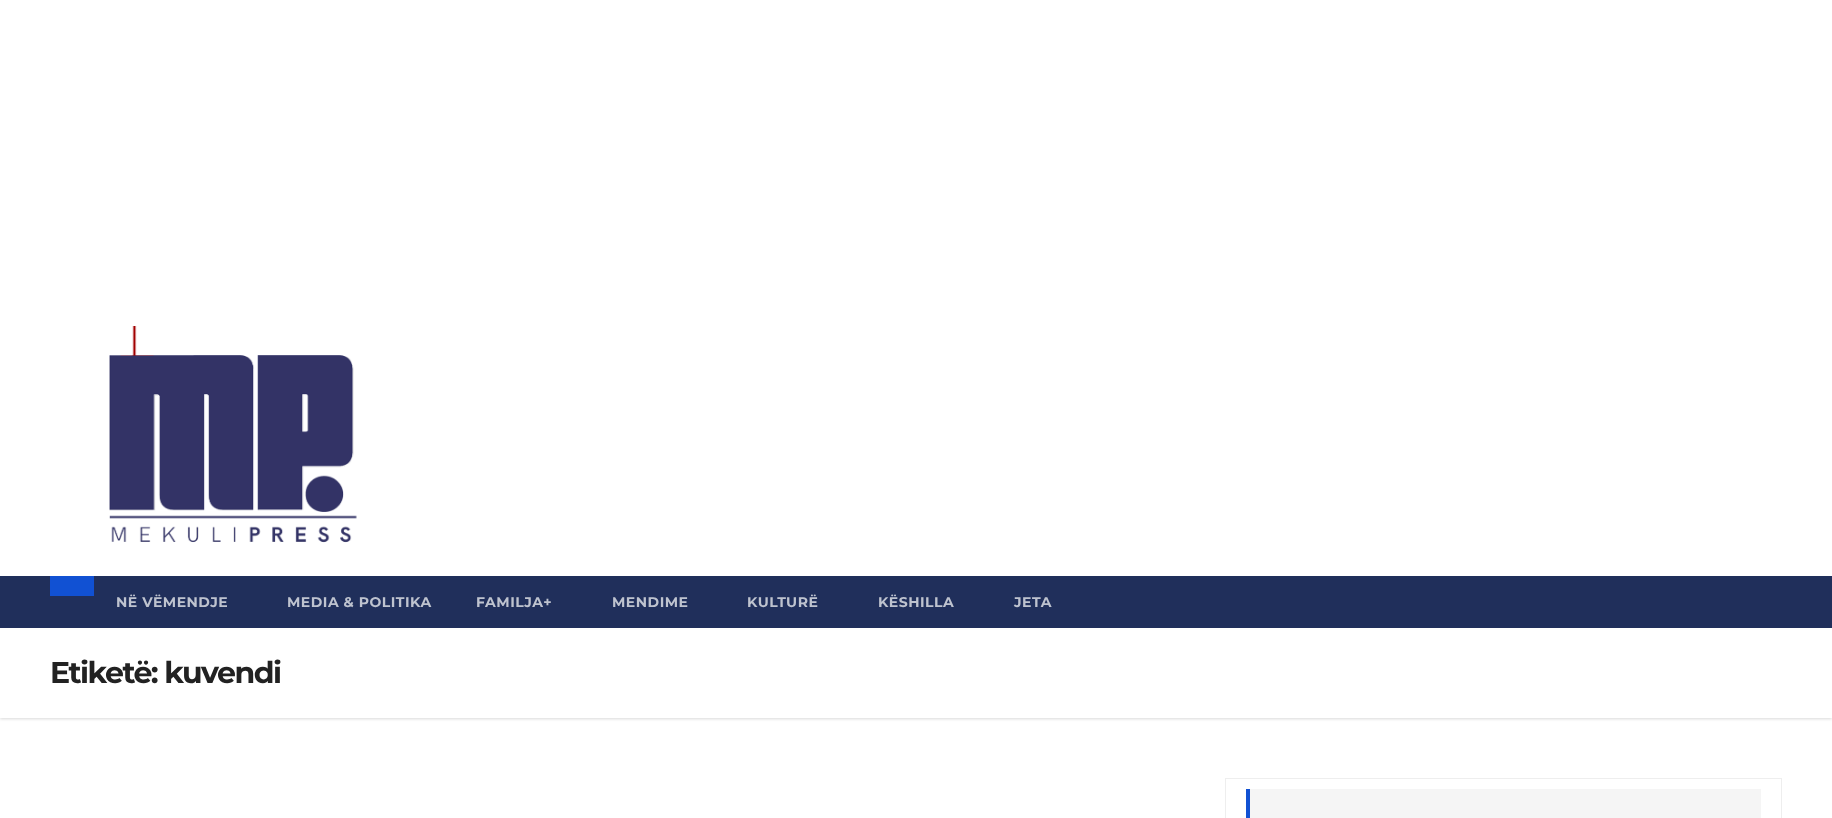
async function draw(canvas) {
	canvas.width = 1832;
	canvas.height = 818;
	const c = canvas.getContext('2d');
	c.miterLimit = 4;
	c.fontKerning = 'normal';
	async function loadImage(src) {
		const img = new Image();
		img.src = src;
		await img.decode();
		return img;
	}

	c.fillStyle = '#fff';
	c.fillRect(0, 0, 1832, 818);
	c.drawImage(await loadImage('img1.png'), 109, 326, 248, 217);
	c.fillStyle = '#00000026';
	c.filter = 'blur(1.5px)';
	c.beginPath();
	c.rect(0, 629, 1832, 90);
	c.fill();
	c.filter = 'none';
	c.fillStyle = '#202f5b';
	c.fillRect(0, 576, 1832, 52);
	c.fillStyle = '#1151d3';
	c.fillRect(50, 576, 44, 20);
	c.letterSpacing = '0.5px';
	c.font = 'bold 14px Montserrat';
	c.fillStyle = '#bec3cf';
	for (const [text, x, y] of [
		['NË VËMENDJE', 116, 607],
		['MEDIA & POLITIKA', 287, 607],
		['FAMILJA+', 476, 607],
		['MENDIME', 612, 607],
		['KULTURË', 747, 607],
		['KËSHILLA', 878, 607],
		['JETA', 1014, 607],
	]) {
		c.fillText(text, x, y);
	}
	c.fillStyle = '#fff';
	c.fillRect(0, 628, 1832, 90);
	c.letterSpacing = '-1.5px';
	c.font = 'bold 30px Montserrat';
	c.fillStyle = '#222';
	c.fillText('Etiketë: kuvendi', 50, 683);
	c.strokeStyle = '#eee';
	c.strokeRect(1225.5, 778.5, 556, 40);
	c.fillStyle = '#f5f5f5';
	c.fillRect(1250, 789, 511, 29);
	c.fillStyle = '#1151d3';
	c.fillRect(1246, 789, 4, 29);
}

draw(document.querySelector('canvas'));
